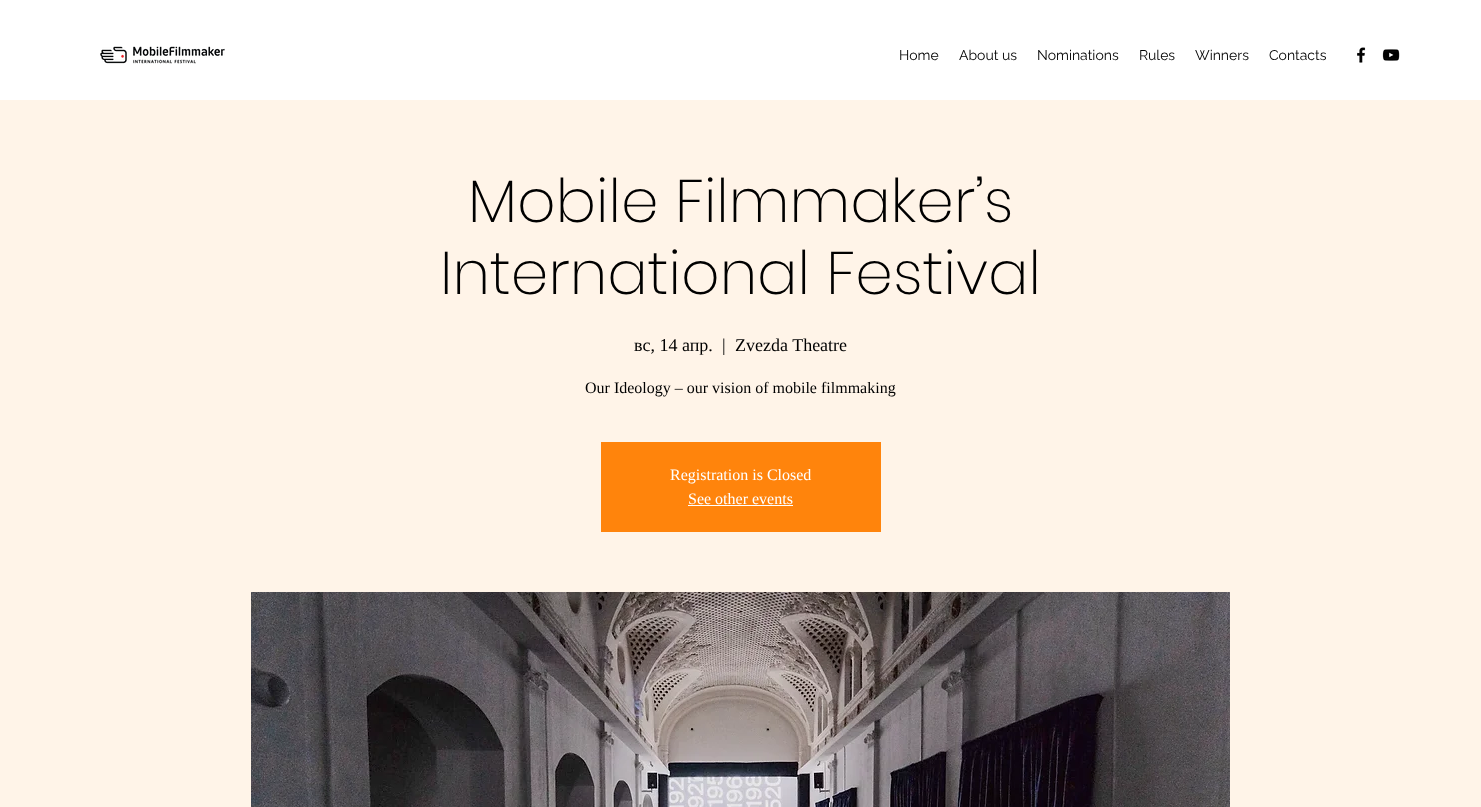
async function draw(canvas) {
	canvas.width = 1481;
	canvas.height = 807;
	const c = canvas.getContext('2d');
	c.miterLimit = 4;
	c.fontKerning = 'normal';
	async function loadImage(src) {
		const img = new Image();
		img.src = src;
		await img.decode();
		return img;
	}

	c.fillStyle = '#fff';
	c.fillRect(0, 0, 1481, 807);
	c.drawImage(await loadImage('img1.png'), 100, 46, 125, 18);
	c.font = '14px Raleway';
	c.fillStyle = '#000';
	for (const [text, x, y] of [
		['Home', 899, 60],
		['About us', 959, 60],
		['Nominations', 1037, 60],
		['Rules', 1139, 60],
		['Winners', 1195, 60],
		['Contacts', 1269, 60],
	]) {
		c.fillText(text, x, y);
	}
	c.drawImage(await loadImage('img2.png'), 1357, 47, 9, 16);
	c.drawImage(await loadImage('img3.png'), 1382, 49, 18, 12);
	c.fillStyle = '#fff4e8';
	c.fillRect(0, 100, 1481, 707);
	c.font = '200 60px Poppins';
	c.fillStyle = '#000';
	c.fillText('Mobile Filmmaker’s', 468, 222);
	c.fillText('International Festival', 440, 294);
	c.font = '18px Liberation Serif';
	for (const [text, x, y] of [
		['вс, 14 апр.', 634, 351],
		['|', 722, 351],
		['Zvezda Theatre', 735, 351],
	]) {
		c.fillText(text, x, y);
	}
	c.font = '16px Liberation Serif';
	c.fillText('Our Ideology – our vision of mobile filmmaking', 585, 393);
	c.fillStyle = '#ff840c';
	c.fillRect(601, 442, 280, 90);
	c.fillStyle = '#fff';
	c.fillText('Registration is Closed', 670, 480);
	c.fillText('See other events', 688, 504);
	c.fillRect(688, 505, 105, 1);
	c.drawImage(await loadImage('img4.png'), 251, 592, 979, 215);
}

draw(document.querySelector('canvas'));
